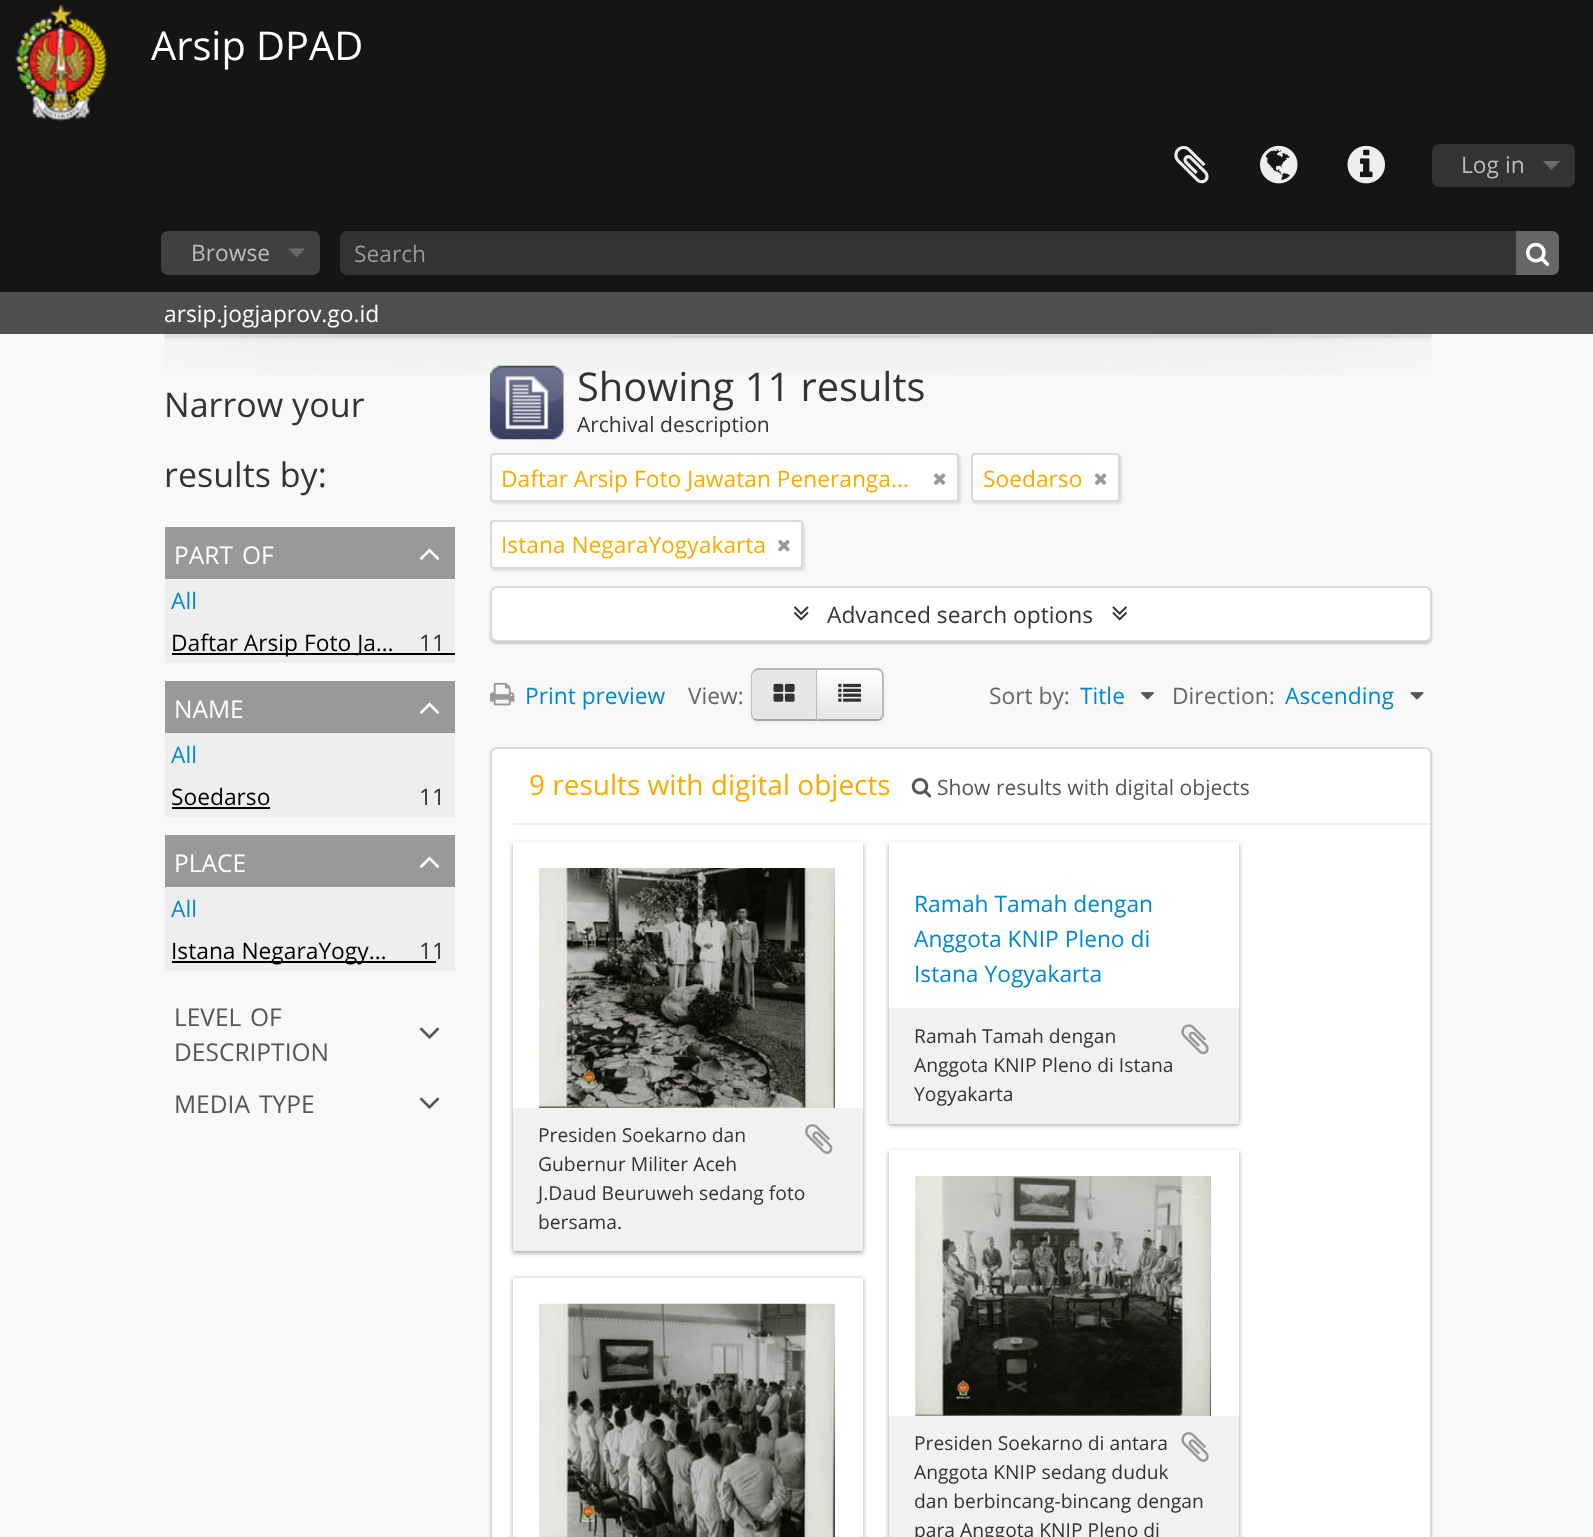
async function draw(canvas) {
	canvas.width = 1593;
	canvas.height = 1537;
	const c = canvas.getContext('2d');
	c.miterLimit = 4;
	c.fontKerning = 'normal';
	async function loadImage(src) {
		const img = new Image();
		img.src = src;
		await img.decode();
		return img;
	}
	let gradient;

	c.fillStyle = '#f8f8f8';
	c.fillRect(0, 0, 1593, 1537);
	c.fillStyle = '#161514';
	c.fillRect(0, 0, 1593, 292);
	c.drawImage(await loadImage('img1.png'), 15, 3, 93, 119);
	c.font = '39.75px Open Sans';
	c.fillStyle = '#fff';
	c.fillText('Arsip DPAD', 151, 60);
	c.drawImage(await loadImage('img2.png'), 1174, 146, 35, 38);
	c.drawImage(await loadImage('img3.png'), 1260, 145, 38, 39);
	c.drawImage(await loadImage('img4.png'), 1347, 145, 38, 39);
	c.fillStyle = '#333';
	c.beginPath();
	c.roundRect(1432, 144, 143, 43, 7);
	c.fill();
	c.drawImage(await loadImage('img5.png'), 1543, 161, 17, 9);
	c.font = '22.75px Open Sans';
	c.fillStyle = '#bbb';
	c.fillText('Log in', 1461, 173);
	c.fillStyle = '#404040';
	c.beginPath();
	c.roundRect(161, 231, 159, 44, 7);
	c.fill();
	c.drawImage(await loadImage('img6.png'), 288, 248, 17, 10);
	c.fillStyle = '#bbb';
	c.fillText('Browse', 191, 261);
	c.fillStyle = '#333';
	c.beginPath();
	c.roundRect(340, 231, 1219, 44, 7);
	c.fill();
	c.fillStyle = '#00000012';
	c.beginPath();
	c.moveTo(346, 233);
	c.lineTo(1552, 233);
	c.bezierCurveTo(1556, 233, 1559, 236, 1559, 240);
	c.lineTo(1559, 238);
	c.bezierCurveTo(1559, 234, 1556, 231, 1552, 231);
	c.lineTo(347, 231);
	c.bezierCurveTo(343, 231, 340, 234, 340, 238);
	c.lineTo(340, 240);
	c.bezierCurveTo(340, 236, 343, 233, 346, 233);
	c.closePath();
	c.fill();
	c.fillStyle = '#999';
	c.fillText('Search', 354, 262);
	c.fillStyle = '#666';
	c.beginPath();
	c.roundRect(1516, 231, 43, 44, [0, 7, 7, 0]);
	c.fill();
	c.drawImage(await loadImage('img7.png'), 1526, 242, 24, 25);
	c.fillStyle = '#4f4e4d';
	c.fillRect(0, 292, 1593, 42);
	c.fillStyle = '#fff';
	c.fillText('arsip.jogjaprov.go.id', 164, 322);
	c.drawImage(await loadImage('img8.png'), 164, 334, 1268, 41);
	c.font = '34px Open Sans';
	c.fillStyle = '#333';
	c.fillText('Narrow your', 164, 417);
	c.fillText('results by:', 164, 487);
	c.fillStyle = '#999';
	c.fillRect(165, 527, 290, 52);
	c.font = '24.5px Open Sans';
	c.fillStyle = '#fff';
	c.fillText('PART', 174, 564);
	c.fillText('OF', 242, 564);
	c.drawImage(await loadImage('img9.png'), 419, 548, 21, 12);
	c.fillStyle = '#eee';
	c.fillRect(165, 579, 290, 84);
	c.font = '22.75px Open Sans';
	c.fillStyle = '#08c';
	c.fillText('All', 171, 609);
	c.fillStyle = '#000';
	c.fillRect(172, 653, 283, 2);
	c.fillText('Daftar Arsip Foto Ja…', 171, 651);
	c.fillStyle = '#333';
	c.fillText('11', 419, 651);
	c.fillStyle = '#999';
	c.fillRect(165, 681, 290, 52);
	c.font = '24.5px Open Sans';
	c.fillStyle = '#fff';
	c.fillText('NAME', 174, 718);
	c.drawImage(await loadImage('img9.png'), 419, 702, 21, 12);
	c.fillStyle = '#eee';
	c.fillRect(165, 733, 290, 84);
	c.font = '22.75px Open Sans';
	c.fillStyle = '#08c';
	c.fillText('All', 171, 763);
	c.fillStyle = '#000';
	c.fillText('Soedarso', 171, 805);
	c.fillRect(172, 807, 98, 2);
	c.fillStyle = '#333';
	c.fillText('11', 419, 805);
	c.fillStyle = '#999';
	c.fillRect(165, 835, 290, 52);
	c.font = '24.5px Open Sans';
	c.fillStyle = '#fff';
	c.fillText('PLACE', 174, 872);
	c.drawImage(await loadImage('img9.png'), 419, 856, 21, 12);
	c.fillStyle = '#eee';
	c.fillRect(165, 887, 290, 84);
	c.font = '22.75px Open Sans';
	c.fillStyle = '#08c';
	c.fillText('All', 171, 917);
	c.fillStyle = '#000';
	c.fillRect(172, 961, 264, 2);
	c.fillText('Istana NegaraYogy…', 171, 959);
	c.fillStyle = '#333';
	c.fillText('11', 419, 959);
	c.font = '24.5px Open Sans';
	c.fillStyle = '#555';
	c.fillText('LEVEL', 174, 1026);
	c.fillText('OF', 250, 1026);
	c.drawImage(await loadImage('img10.png'), 419, 1027, 21, 12);
	for (const [text, x, y] of [
		['DESCRIPTION', 174, 1061],
		['MEDIA', 174, 1113],
		['TYPE', 259, 1113],
	]) {
		c.fillText(text, x, y);
	}
	c.drawImage(await loadImage('img10.png'), 419, 1097, 21, 12);
	c.drawImage(await loadImage('img11.png'), 490, 365, 74, 75);
	c.font = '39.75px Open Sans';
	c.fillStyle = '#333';
	c.fillText('Showing 11 results', 577, 401);
	c.font = '21px Open Sans';
	c.fillText('Archival description', 577, 432);
	c.fillStyle = '#0000001a';
	c.filter = 'blur(1px)';
	c.beginPath();
	c.roundRect(492, 455, 469, 49, 4);
	c.fill();
	c.filter = 'none';
	c.fillStyle = '#fff';
	c.beginPath();
	c.roundRect(491, 454, 467, 47, 3);
	c.fill();
	c.strokeStyle = '#d9d9d9';
	c.lineWidth = 2;
	c.stroke();
	c.font = '22.75px Open Sans';
	c.fillStyle = '#f6ac00';
	c.fillText('Daftar Arsip Foto Jawatan Peneranga…', 501, 487);
	c.drawImage(await loadImage('img12.png'), 933, 473, 13, 12);
	c.fillStyle = '#0000001a';
	c.filter = 'blur(1px)';
	c.beginPath();
	c.roundRect(973, 455, 149, 49, 4);
	c.fill();
	c.filter = 'none';
	c.fillStyle = '#fff';
	c.beginPath();
	c.roundRect(972, 454, 147, 47, 3);
	c.fill();
	c.stroke();
	c.fillStyle = '#f6ac00';
	c.fillText('Soedarso', 983, 487);
	c.drawImage(await loadImage('img12.png'), 1094, 473, 13, 12);
	c.fillStyle = '#0000001a';
	c.filter = 'blur(1px)';
	c.beginPath();
	c.roundRect(492, 522, 313, 49, 4);
	c.fill();
	c.filter = 'none';
	c.fillStyle = '#fff';
	c.beginPath();
	c.roundRect(491, 521, 311, 47, 3);
	c.fill();
	c.stroke();
	c.fillStyle = '#f6ac00';
	c.fillText('Istana NegaraYogyakarta', 501, 553);
	c.drawImage(await loadImage('img13.png'), 778, 539, 12, 13);
	c.fillStyle = '#00000033';
	c.filter = 'blur(1px)';
	c.beginPath();
	c.roundRect(490, 588, 942, 56, 7);
	c.fill();
	c.filter = 'none';
	c.fillStyle = '#fff';
	c.beginPath();
	c.roundRect(491, 587, 940, 54, 6);
	c.fill();
	c.stroke();
	c.drawImage(await loadImage('img14.png'), 793, 606, 16, 15);
	c.fillStyle = '#333';
	c.fillText('Advanced search options', 827, 623);
	c.drawImage(await loadImage('img15.png'), 1112, 606, 15, 15);
	c.drawImage(await loadImage('img16.png'), 490, 682, 25, 24);
	c.fillStyle = '#08c';
	c.fillText('Print preview', 525, 704);
	c.fillStyle = '#666';
	c.fillText('View:', 688, 704);
	c.fillStyle = '#0000000d';
	c.filter = 'blur(2px)';
	c.beginPath();
	c.roundRect(816, 670, 68, 53, 7);
	c.fill();
	c.filter = 'none';
	c.fillStyle = '#f5f5f5';
	c.beginPath();
	c.roundRect(816, 669, 68, 52, [0, 7, 7, 0]);
	c.fill();
	c.save();
	c.beginPath();
	c.roundRect(816, 669, 68, 52, [0, 7, 7, 0]);
	c.clip();
	gradient = c.createLinearGradient(850, 670, 850, 719);
	gradient.addColorStop(0, '#fff');
	gradient.addColorStop(1, '#e6e6e6');
	c.fillStyle = gradient;
	c.fillRect(817, 670, 67, 49);
	c.restore();
	c.fillStyle = '#bbb';
	c.beginPath();
	c.moveTo(817, 670);
	c.lineTo(816, 668);
	c.lineTo(879, 668);
	c.lineTo(882, 670);
	c.lineTo(881, 672);
	c.bezierCurveTo(880, 671, 878, 670, 877, 670);
	c.closePath();
	c.fill();
	c.beginPath();
	c.moveTo(884, 716);
	c.lineTo(882, 719);
	c.lineTo(880, 718);
	c.bezierCurveTo(881, 717, 882, 716, 882, 714);
	c.lineTo(882, 676);
	c.bezierCurveTo(882, 674, 881, 673, 881, 672);
	c.lineTo(882, 670);
	c.lineTo(884, 674);
	c.closePath();
	c.fill();
	c.fillStyle = '#a2a2a2';
	c.beginPath();
	c.moveTo(816, 721);
	c.lineTo(877, 721);
	c.bezierCurveTo(879, 721, 881, 720, 882, 719);
	c.lineTo(880, 718);
	c.bezierCurveTo(880, 719, 878, 719, 877, 719);
	c.lineTo(818, 719);
	c.closePath();
	c.fill();
	c.fillStyle = '#0000000d';
	c.filter = 'blur(2px)';
	c.beginPath();
	c.roundRect(751, 670, 66, 53, 7);
	c.fill();
	c.filter = 'none';
	c.fillStyle = '#e6e6e6';
	c.beginPath();
	c.roundRect(751, 669, 66, 52, [7, 0, 0, 7]);
	c.fill();
	c.fillStyle = '#bbb';
	c.beginPath();
	c.moveTo(758, 670);
	c.bezierCurveTo(757, 670, 755, 671, 754, 672);
	c.lineTo(753, 671);
	c.lineTo(756, 668);
	c.lineTo(817, 668);
	c.lineTo(816, 670);
	c.closePath();
	c.fill();
	c.beginPath();
	c.moveTo(817, 669);
	c.lineTo(817, 721);
	c.lineTo(815, 719);
	c.lineTo(816, 719);
	c.lineTo(816, 670);
	c.closePath();
	c.fill();
	c.fillStyle = '#a2a2a2';
	c.beginPath();
	c.moveTo(758, 721);
	c.lineTo(817, 721);
	c.lineTo(815, 719);
	c.lineTo(758, 719);
	c.bezierCurveTo(757, 719, 755, 719, 754, 718);
	c.lineTo(753, 719);
	c.bezierCurveTo(754, 720, 756, 721, 758, 721);
	c.closePath();
	c.fill();
	c.fillStyle = '#bbb';
	c.beginPath();
	c.moveTo(753, 719);
	c.bezierCurveTo(752, 718, 751, 716, 751, 714);
	c.lineTo(751, 676);
	c.bezierCurveTo(751, 674, 752, 672, 753, 671);
	c.lineTo(754, 672);
	c.bezierCurveTo(753, 673, 752, 674, 752, 676);
	c.lineTo(752, 714);
	c.bezierCurveTo(752, 716, 753, 717, 754, 718);
	c.closePath();
	c.fill();
	c.drawImage(await loadImage('img17.png'), 773, 683, 22, 19);
	c.drawImage(await loadImage('img18.png'), 838, 683, 23, 19);
	c.fillStyle = '#666';
	c.fillText('Sort by:', 989, 704);
	c.fillStyle = '#08c';
	c.fillText('Title', 1080, 704);
	c.drawImage(await loadImage('img19.png'), 1141, 692, 13, 8);
	c.fillStyle = '#666';
	c.fillText('Direction:', 1172, 704);
	c.fillStyle = '#08c';
	c.fillText('Ascending', 1285, 704);
	c.drawImage(await loadImage('img20.png'), 1410, 692, 14, 8);
	c.fillStyle = '#00000033';
	c.filter = 'blur(1px)';
	c.beginPath();
	c.roundRect(490, 749, 942, 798, 7);
	c.fill();
	c.filter = 'none';
	c.fillStyle = '#fff';
	c.beginPath();
	c.roundRect(491, 748, 940, 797, 6);
	c.fill();
	c.stroke();
	c.fillStyle = '#eee';
	c.fillRect(513, 823, 917, 2);
	c.font = '28px Open Sans';
	c.fillStyle = '#f6ac00';
	c.fillText('9 results with digital objects', 529, 795);
	c.drawImage(await loadImage('img21.png'), 911, 778, 21, 20);
	c.font = '21px Open Sans';
	c.fillStyle = '#555';
	c.fillText('Show results with digital objects', 937, 795);
	c.fillStyle = '#19191966';
	c.filter = 'blur(2.5px)';
	c.beginPath();
	c.rect(889, 844, 350, 281);
	c.fill();
	c.filter = 'none';
	c.fillStyle = '#fff';
	c.fillRect(889, 842, 350, 166);
	c.font = '22.75px Open Sans';
	c.fillStyle = '#08c';
	for (const [text, x, y] of [
		['Ramah Tamah dengan', 914, 912],
		['Anggota KNIP Pleno di', 914, 947],
		['Istana Yogyakarta', 914, 982],
	]) {
		c.fillText(text, x, y);
	}
	c.fillStyle = '#f2f0f0';
	c.fillRect(889, 1008, 350, 116);
	c.font = '19.25px Open Sans';
	c.fillStyle = '#333';
	c.fillText('Ramah Tamah dengan', 914, 1043);
	c.drawImage(await loadImage('img22.png'), 1181, 1024, 28, 31);
	c.fillText('Anggota KNIP Pleno di Istana', 914, 1072);
	c.fillText('Yogyakarta', 914, 1101);
	c.fillStyle = '#19191966';
	c.filter = 'blur(2.5px)';
	c.beginPath();
	c.rect(513, 844, 350, 409);
	c.fill();
	c.filter = 'none';
	c.fillStyle = '#fff';
	c.fillRect(513, 842, 350, 266);
	c.drawImage(await loadImage('img23.png'), 539, 868, 296, 240);
	c.fillStyle = '#f2f0f0';
	c.fillRect(513, 1108, 350, 143);
	c.fillStyle = '#333';
	c.fillText('Presiden Soekarno dan', 538, 1142);
	c.drawImage(await loadImage('img24.png'), 805, 1124, 28, 30);
	for (const [text, x, y] of [
		['Gubernur Militer Aceh', 538, 1171],
		['J.Daud Beuruweh sedang foto', 538, 1200],
		['bersama.', 538, 1229],
	]) {
		c.fillText(text, x, y);
	}
	c.fillStyle = '#19191966';
	c.filter = 'blur(2.5px)';
	c.beginPath();
	c.rect(513, 1279, 350, 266);
	c.fill();
	c.filter = 'none';
	c.fillStyle = '#fff';
	c.fillRect(513, 1278, 350, 259);
	c.drawImage(await loadImage('img25.png'), 539, 1303, 296, 234);
	c.save();
	c.beginPath();
	c.moveTo(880, 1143);
	c.lineTo(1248, 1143);
	c.lineTo(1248, 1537);
	c.lineTo(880, 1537);
	c.closePath();
	c.moveTo(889, 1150);
	c.lineTo(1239, 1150);
	c.lineTo(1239, 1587);
	c.lineTo(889, 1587);
	c.closePath();
	c.clip('evenodd');
	c.fillStyle = '#19191966';
	c.filter = 'blur(2.5px)';
	c.beginPath();
	c.rect(889, 1152, 350, 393);
	c.fill();
	c.filter = 'none';
	c.restore();
	c.drawImage(await loadImage('img26.png'), 915, 1176, 296, 240);
	c.fillStyle = '#f2f0f0';
	c.fillRect(889, 1416, 350, 121);
	c.fillStyle = '#333';
	c.fillText('Presiden Soekarno di antara', 914, 1450);
	c.drawImage(await loadImage('img27.png'), 1181, 1432, 28, 30);
	for (const [text, x, y] of [
		['Anggota KNIP sedang duduk', 914, 1479],
		['dan berbincang-bincang dengan', 914, 1508],
		['para Anggota KNIP Pleno di', 914, 1537],
	]) {
		c.fillText(text, x, y);
	}
}

draw(document.querySelector('canvas'));
